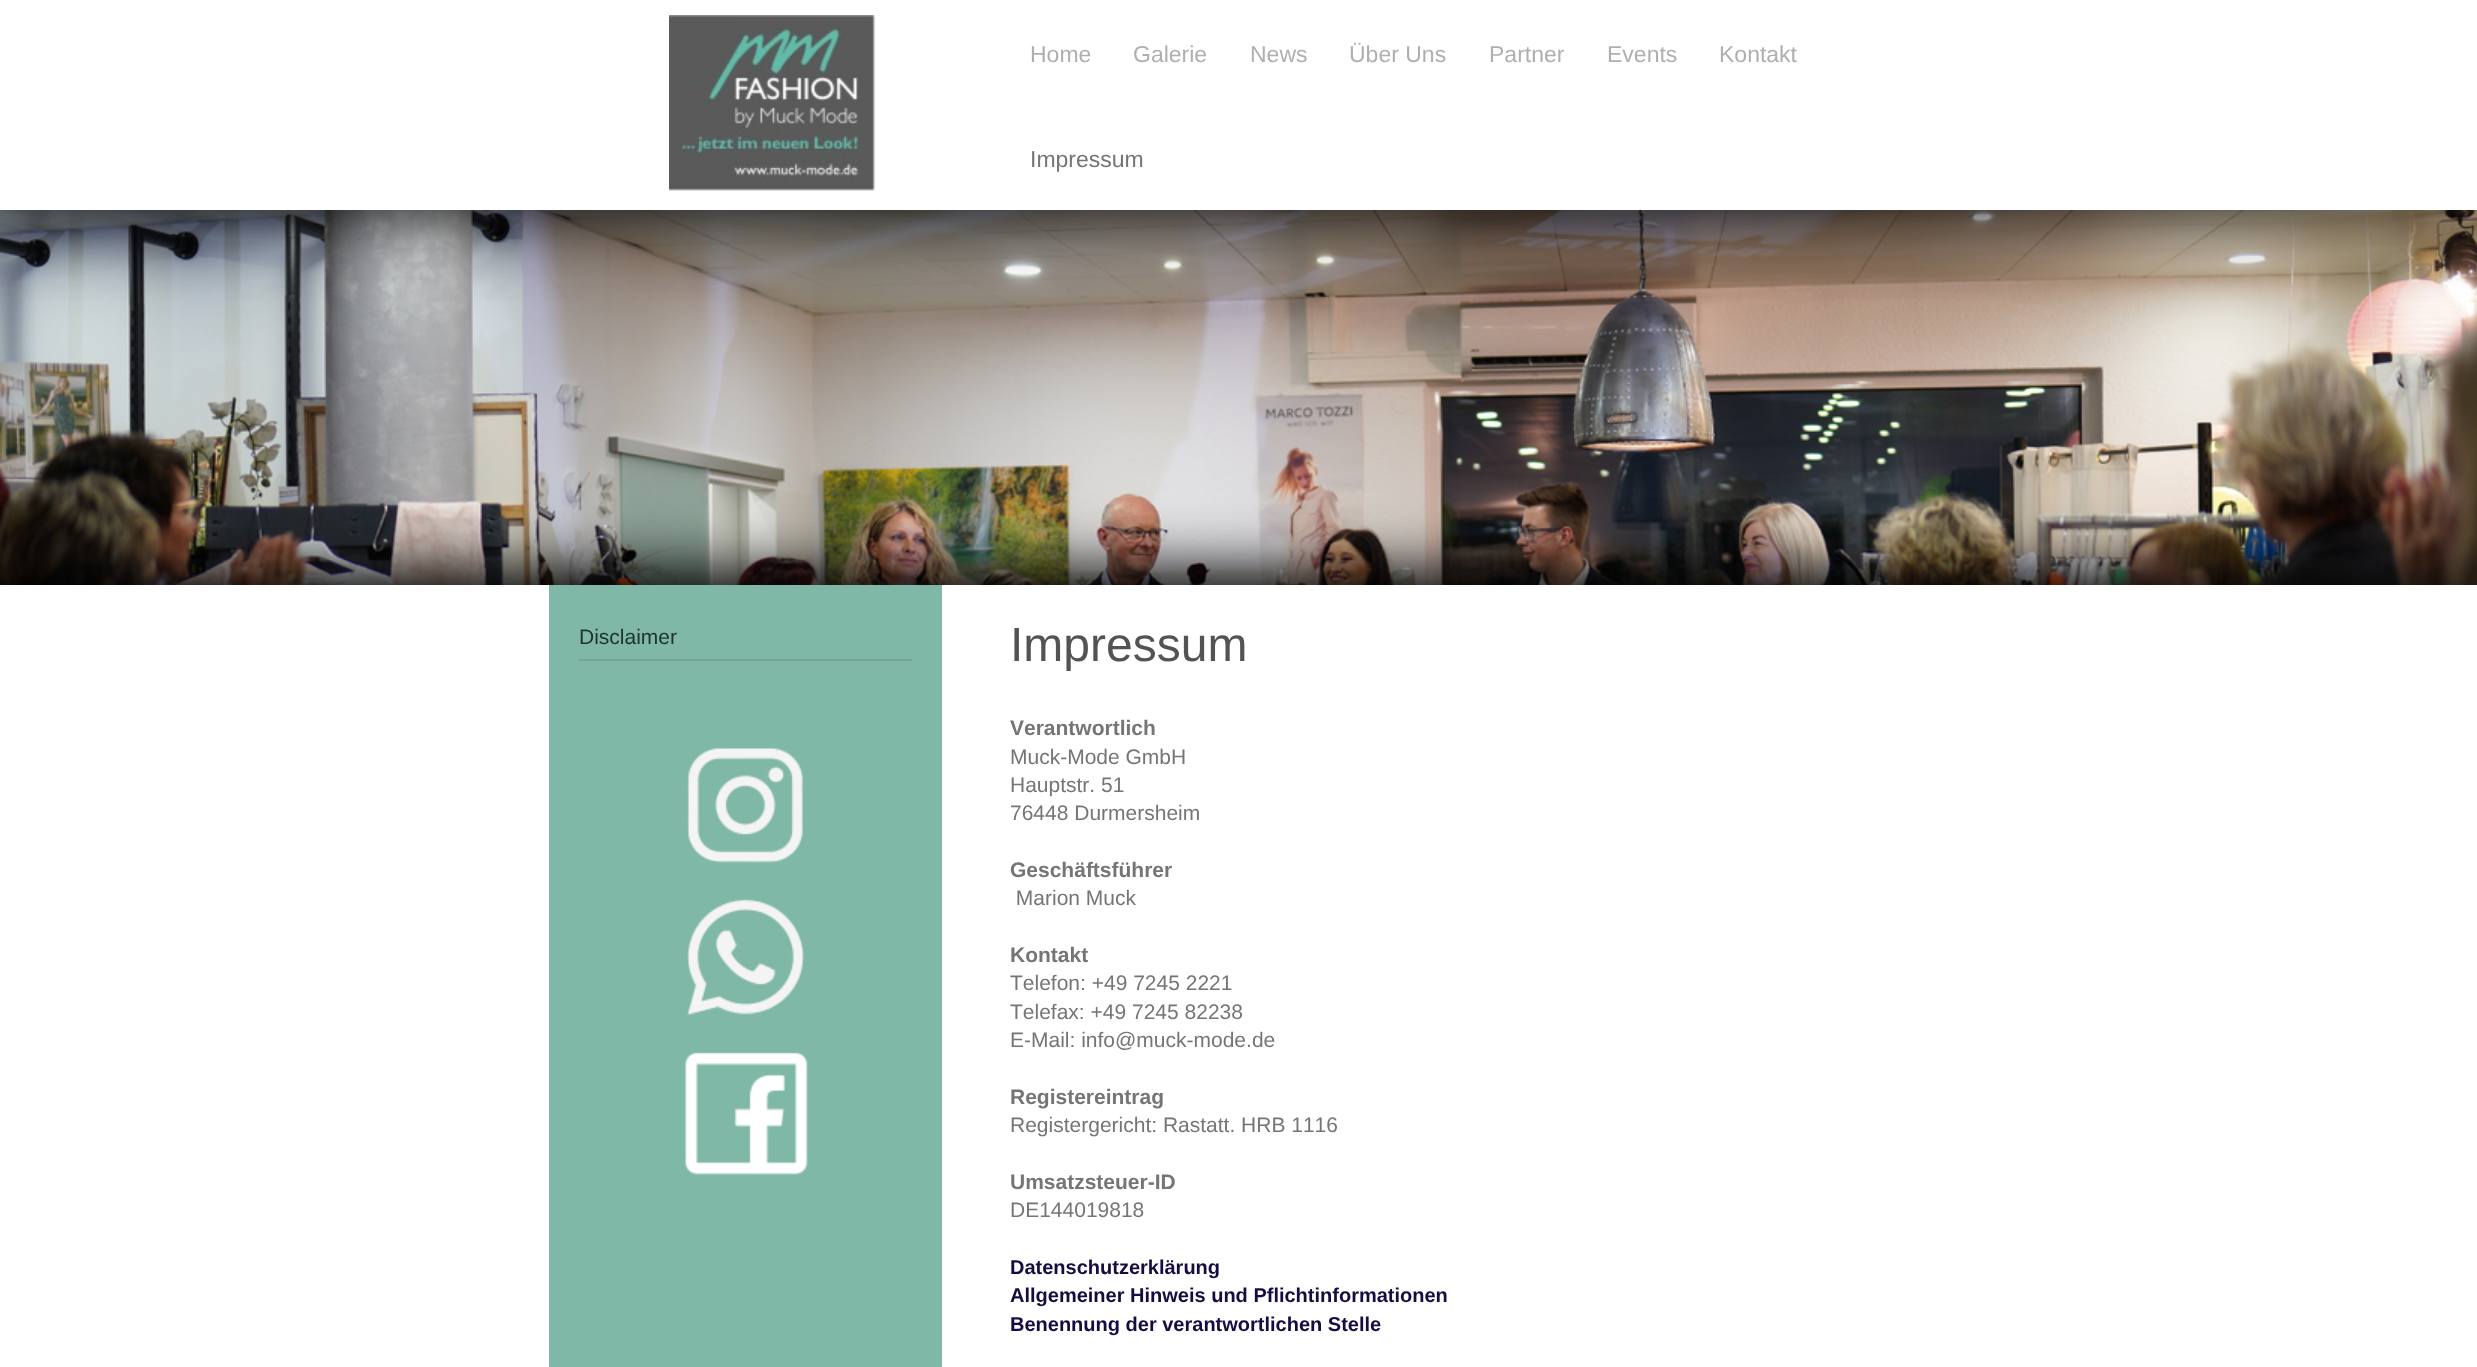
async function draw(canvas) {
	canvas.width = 2477;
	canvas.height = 1367;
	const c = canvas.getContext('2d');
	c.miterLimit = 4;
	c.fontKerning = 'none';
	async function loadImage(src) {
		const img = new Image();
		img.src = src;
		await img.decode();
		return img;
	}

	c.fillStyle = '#fff';
	c.fillRect(0, 0, 2477, 1367);
	c.drawImage(await loadImage('img1.png'), 0, 210, 2477, 375);
	c.fillStyle = '#000';
	c.filter = 'blur(37.5px)';
	c.beginPath();
	c.rect(6, 0, 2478, 210);
	c.fill();
	c.filter = 'none';
	c.fillStyle = '#fff';
	c.fillRect(0, 0, 2477, 210);
	c.drawImage(await loadImage('img2.png'), 669, 15, 206, 176);
	c.font = '23px Liberation Sans';
	c.fillStyle = '#afafaf';
	for (const [text, x, y] of [
		['Home', 1030, 62],
		['Galerie', 1133, 62],
		['News', 1250, 62],
		['Über Uns', 1349, 62],
		['Partner', 1489, 62],
		['Events', 1607, 62],
		['Kontakt', 1719, 62],
	]) {
		c.fillText(text, x, y);
	}
	c.fillStyle = '#757575';
	c.fillText('Impressum', 1030, 167);
	c.fillStyle = '#000';
	c.filter = 'blur(30px)';
	c.beginPath();
	c.rect(15, 570, 2448, 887);
	c.fill();
	c.filter = 'none';
	for (const [x, y, w, h, color] of [
		[0, 585, 2477, 782, '#fff'],
		[549, 585, 393, 782, '#7fb8a6'],
		[579, 659, 333, 2, '#72a695'],
	]) {
		c.fillStyle = color;
		c.fillRect(x, y, w, h);
	}
	c.font = '21px Liberation Sans';
	c.fillStyle = '#1f332c';
	c.fillText('Disclaimer', 579, 644);
	c.drawImage(await loadImage('img3.png'), 687, 748, 116, 115);
	c.drawImage(await loadImage('img4.png'), 687, 899, 118, 117);
	c.drawImage(await loadImage('img5.png'), 685, 1052, 123, 123);
	c.font = '48px Liberation Sans';
	c.fillStyle = '#535353';
	c.fillText('Impressum', 1010, 661);
	c.font = 'bold 21px Liberation Sans';
	c.fillStyle = '#757575';
	c.fillText('Verantwortlich', 1010, 735);
	c.font = '21px Liberation Sans';
	for (const [text, x, y] of [
		['Muck-Mode GmbH', 1010, 764],
		['Hauptstr. 51', 1010, 792],
		['76448 Durmersheim', 1010, 820],
	]) {
		c.fillText(text, x, y);
	}
	c.font = 'bold 21px Liberation Sans';
	c.fillText('Geschäftsführer', 1010, 877);
	c.font = '21px Liberation Sans';
	c.fillText(' Marion Muck', 1010, 905);
	c.font = 'bold 21px Liberation Sans';
	c.fillText('Kontakt', 1010, 962);
	c.font = '21px Liberation Sans';
	for (const [text, x, y] of [
		['Telefon: +49 7245 2221', 1010, 990],
		['Telefax: +49 7245 82238', 1010, 1019],
		['E-Mail: info@muck-mode.de', 1010, 1047],
	]) {
		c.fillText(text, x, y);
	}
	c.font = 'bold 21px Liberation Sans';
	c.fillText('Registereintrag', 1010, 1104);
	c.font = '21px Liberation Sans';
	c.fillText('Registergericht: Rastatt. HRB 1116', 1010, 1132);
	c.font = 'bold 21px Liberation Sans';
	c.fillText('Umsatzsteuer-ID', 1010, 1189);
	c.font = '21px Liberation Sans';
	c.fillText('DE144019818', 1010, 1217);
	c.font = 'bold 20px Liberation Sans';
	c.fillStyle = '#150d42';
	for (const [text, x, y] of [
		['Datenschutzerklärung', 1010, 1274],
		['Allgemeiner Hinweis und Pflichtinformationen', 1010, 1302],
		['Benennung der verantwortlichen Stelle', 1010, 1331],
	]) {
		c.fillText(text, x, y);
	}
}

draw(document.querySelector('canvas'));
